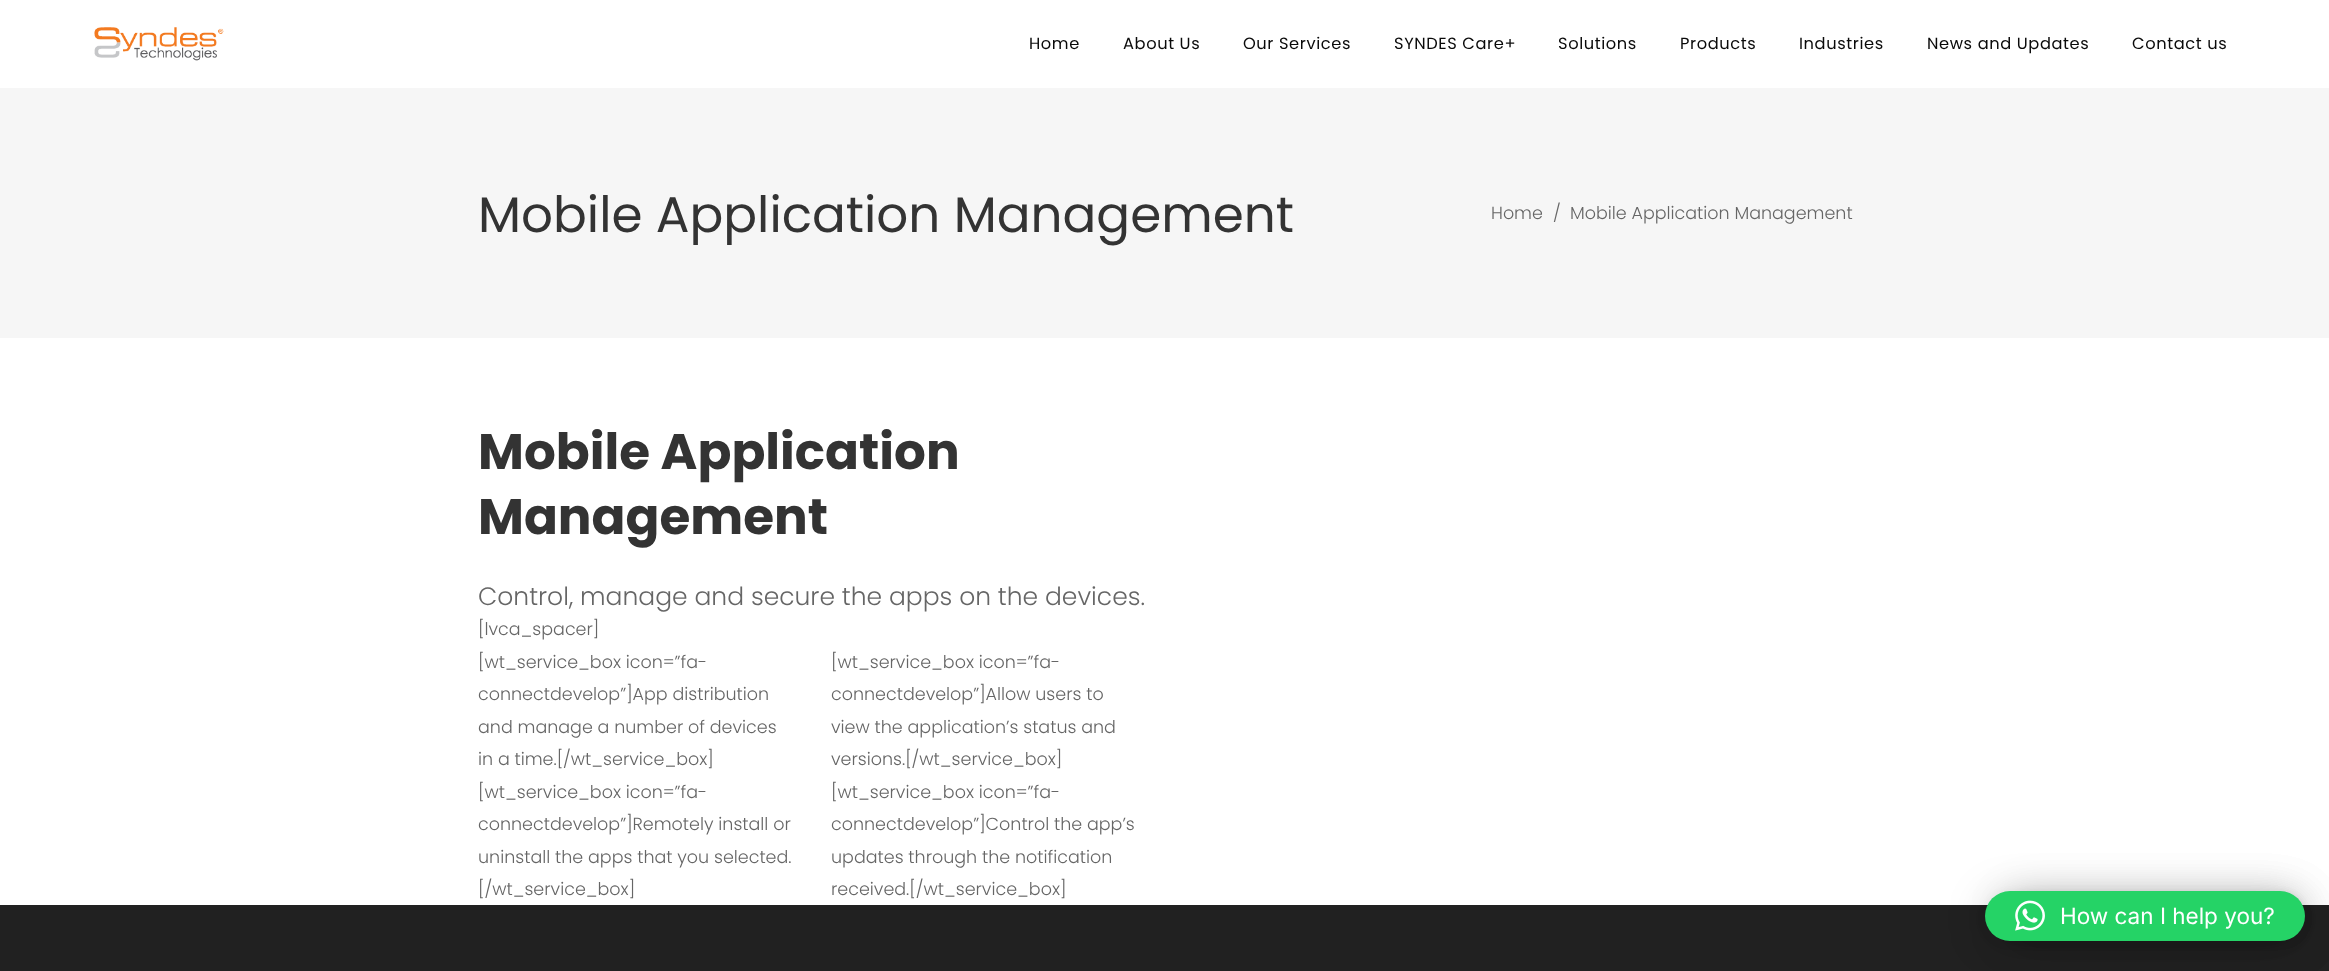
async function draw(canvas) {
	canvas.width = 2329;
	canvas.height = 971;
	const c = canvas.getContext('2d');
	c.miterLimit = 4;
	c.fontKerning = 'normal';
	async function loadImage(src) {
		const img = new Image();
		img.src = src;
		await img.decode();
		return img;
	}

	c.fillStyle = '#fff';
	c.fillRect(0, 0, 2329, 971);
	c.drawImage(await loadImage('img1.png'), 94, 27, 130, 34);
	c.letterSpacing = '0.6px';
	c.font = '16.25px Poppins';
	c.fillStyle = '#0a0a0a';
	for (const [text, x, y] of [
		['Home', 1029, 49],
		['About Us', 1123, 49],
		['Our Services', 1243, 49],
		['SYNDES Care+', 1394, 49],
		['Solutions', 1558, 49],
		['Products', 1680, 49],
		['Industries', 1799, 49],
		['News and Updates', 1927, 49],
		['Contact us', 2132, 49],
	]) {
		c.fillText(text, x, y);
	}
	c.fillStyle = '#f6f6f6';
	c.fillRect(0, 88, 2329, 250);
	c.letterSpacing = '0px';
	c.font = '50px Poppins';
	c.fillStyle = '#333';
	c.fillText('Mobile Application Management', 478, 232);
	c.font = '300 17.5px Poppins';
	c.fillStyle = '#666';
	for (const [text, x, y] of [
		['Home', 1491, 219],
		['/', 1553, 219],
		['Mobile Application Management', 1570, 219],
	]) {
		c.fillText(text, x, y);
	}
	c.font = 'bold 50px Poppins';
	c.fillStyle = '#333';
	c.fillText('Mobile Application', 478, 469);
	c.fillText('Management', 478, 534);
	c.font = '300 25px Poppins';
	c.fillStyle = '#666';
	c.fillText('Control, manage and secure the apps on the devices.', 478, 605);
	c.font = '300 17.5px Poppins';
	for (const [text, x, y] of [
		['[lvca_spacer]', 478, 635],
		['[wt_service_box icon=”fa-', 478, 668],
		['connectdevelop”]App distribution', 478, 700],
		['and manage a number of devices', 478, 733],
		['in a time.[/wt_service_box]', 478, 765],
		['[wt_service_box icon=”fa-', 478, 798],
		['connectdevelop”]Remotely install or', 478, 830],
		['uninstall the apps that you selected.', 478, 863],
		['[/wt_service_box]', 478, 895],
		['[wt_service_box icon=”fa-', 831, 668],
		['connectdevelop”]Allow users to', 831, 700],
		['view the application’s status and', 831, 733],
		['versions.[/wt_service_box]', 831, 765],
		['[wt_service_box icon=”fa-', 831, 798],
		['connectdevelop”]Control the app’s', 831, 830],
		['updates through the notification', 831, 863],
		['received.[/wt_service_box]', 831, 895],
	]) {
		c.fillText(text, x, y);
	}
	c.fillStyle = '#212121';
	c.fillRect(0, 905, 2329, 66);
	c.fillStyle = '#00000029';
	c.filter = 'blur(20px)';
	c.beginPath();
	c.roundRect(2006, 894, 299, 50, 25);
	c.fill();
	c.filter = 'none';
	c.fillStyle = '#0000000f';
	c.filter = 'blur(4px)';
	c.beginPath();
	c.roundRect(2006, 893, 299, 50, 25);
	c.fill();
	c.filter = 'none';
	c.fillStyle = '#00000029';
	c.filter = 'blur(20px)';
	c.beginPath();
	c.roundRect(1985, 894, 320, 50, 25);
	c.fill();
	c.filter = 'none';
	c.fillStyle = '#0000000f';
	c.filter = 'blur(4px)';
	c.beginPath();
	c.roundRect(1985, 893, 320, 50, 25);
	c.fill();
	c.filter = 'none';
	c.fillStyle = '#25d366';
	c.beginPath();
	c.roundRect(1985, 891, 320, 50, 25);
	c.fill();
	c.drawImage(await loadImage('img2.png'), 2015, 900, 30, 31);
	c.font = '22.5px Inter';
	c.fillStyle = '#fff';
	c.fillText('How can I help you?', 2060, 924);
}

draw(document.querySelector('canvas'));
